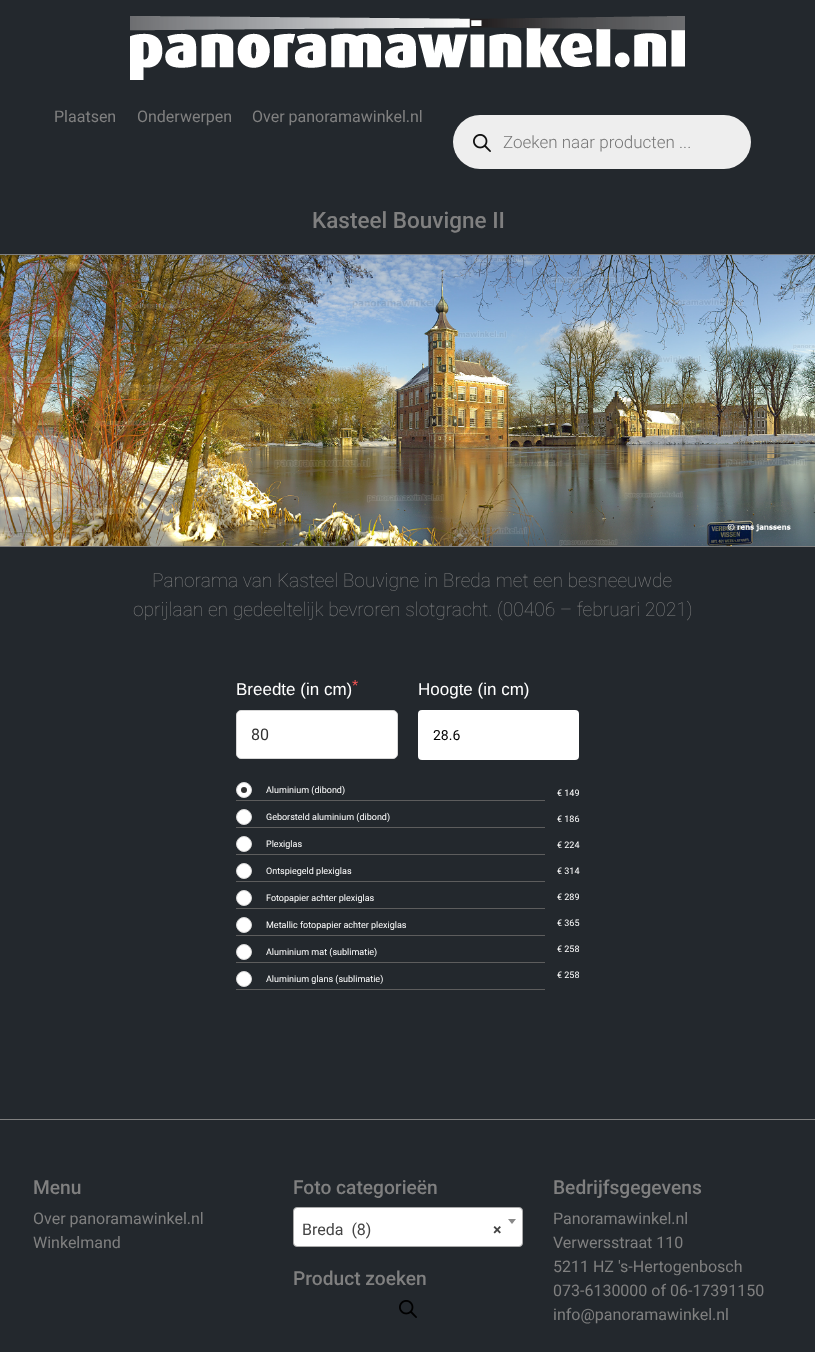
async function draw(canvas) {
	canvas.width = 815;
	canvas.height = 1352;
	const c = canvas.getContext('2d');
	c.miterLimit = 4;
	c.fontKerning = 'normal';
	async function loadImage(src) {
		const img = new Image();
		img.src = src;
		await img.decode();
		return img;
	}

	c.fillStyle = '#23282d';
	c.fillRect(0, 0, 815, 1352);
	c.drawImage(await loadImage('img1.png'), 130, 16, 555, 64);
	c.font = '16px Roboto';
	c.fillStyle = '#808080';
	for (const [text, x, y] of [
		['Plaatsen', 54, 122],
		['Onderwerpen', 137, 122],
		['Over panoramawinkel.nl', 252, 122],
	]) {
		c.fillText(text, x, y);
	}
	c.fillStyle = '#eee';
	c.beginPath();
	c.roundRect(453, 115, 298, 54, 27);
	c.fill();
	c.drawImage(await loadImage('img2.png'), 473, 134, 18, 18);
	c.font = '300 17px Roboto';
	c.fillStyle = '#777';
	c.fillText('Zoeken naar producten ...', 503, 148);
	c.font = '500 22.5px Roboto';
	c.fillStyle = '#808080';
	c.fillText('Kasteel Bouvigne II', 312, 228);
	c.fillRect(0, 254, 815, 1);
	c.fillRect(0, 546, 815, 1);
	c.drawImage(await loadImage('img3.png'), 0, 255, 815, 291);
	c.font = '100 19.2px Roboto';
	c.fillText('Panorama van Kasteel Bouvigne in Breda met een besneeuwde', 152, 587);
	c.fillText('oprijlaan en gedeeltelijk bevroren slotgracht. (00406 – februari 2021)', 133, 616);
	c.font = '17px Liberation Sans';
	c.fillStyle = '#fff';
	c.fillText('Breedte (in cm)', 236, 695);
	c.font = '16px Liberation Sans';
	c.fillStyle = '#f75555';
	c.fillText('*', 352, 691);
	c.fillStyle = '#fff';
	c.beginPath();
	c.roundRect(236.5, 710.5, 161, 48, 4.5);
	c.fill();
	c.strokeStyle = '#d7d7d7';
	c.stroke();
	c.font = '16px Roboto';
	c.fillStyle = '#333';
	c.fillText('80', 251, 740);
	c.font = '17px Liberation Sans';
	c.fillStyle = '#fff';
	c.fillText('Hoogte (in cm)', 418, 695);
	c.beginPath();
	c.roundRect(418, 710, 161, 50, 4);
	c.fill();
	c.font = '14px Roboto';
	c.fillStyle = '#000';
	c.fillText('28.6', 433, 740);
	c.fillStyle = '#5d5d5d';
	c.fillRect(236, 800, 309, 1);
	c.fillStyle = '#fff';
	c.beginPath();
	c.arc(244, 790, 7.5, 0, 2 * Math.PI);
	c.fill();
	c.stroke();
	c.fillStyle = '#333';
	c.beginPath();
	c.arc(244, 790, 3, 0, 2 * Math.PI);
	c.fill();
	c.font = '9px Roboto';
	c.fillStyle = '#fff';
	c.fillText('Aluminium (dibond)', 266, 793);
	c.fillStyle = '#5d5d5d';
	c.fillRect(236, 827, 309, 1);
	c.fillStyle = '#fff';
	c.beginPath();
	c.arc(244, 817, 7.5, 0, 2 * Math.PI);
	c.fill();
	c.stroke();
	c.fillText('Geborsteld aluminium (dibond)', 266, 820);
	c.fillStyle = '#5d5d5d';
	c.fillRect(236, 854, 309, 1);
	c.fillStyle = '#fff';
	c.beginPath();
	c.arc(244, 844, 7.5, 0, 2 * Math.PI);
	c.fill();
	c.stroke();
	c.fillText('Plexiglas', 266, 847);
	c.fillStyle = '#5d5d5d';
	c.fillRect(236, 881, 309, 1);
	c.fillStyle = '#fff';
	c.beginPath();
	c.arc(244, 871, 7.5, 0, 2 * Math.PI);
	c.fill();
	c.stroke();
	c.fillText('Ontspiegeld plexiglas', 266, 874);
	c.fillStyle = '#5d5d5d';
	c.fillRect(236, 908, 309, 1);
	c.fillStyle = '#fff';
	c.beginPath();
	c.arc(244, 898, 7.5, 0, 2 * Math.PI);
	c.fill();
	c.stroke();
	c.fillText('Fotopapier achter plexiglas', 266, 901);
	c.fillStyle = '#5d5d5d';
	c.fillRect(236, 935, 309, 1);
	c.fillStyle = '#fff';
	c.beginPath();
	c.arc(244, 925, 7.5, 0, 2 * Math.PI);
	c.fill();
	c.stroke();
	c.fillText('Metallic fotopapier achter plexiglas', 266, 928);
	c.fillStyle = '#5d5d5d';
	c.fillRect(236, 962, 309, 1);
	c.fillStyle = '#fff';
	c.beginPath();
	c.arc(244, 952, 7.5, 0, 2 * Math.PI);
	c.fill();
	c.stroke();
	c.fillText('Aluminium mat (sublimatie)', 266, 955);
	c.fillStyle = '#5d5d5d';
	c.fillRect(236, 989, 309, 1);
	c.fillStyle = '#fff';
	c.beginPath();
	c.arc(244, 979, 7.5, 0, 2 * Math.PI);
	c.fill();
	c.stroke();
	for (const [text, x, y] of [
		['Aluminium glans (sublimatie)', 266, 982],
		['€ 149', 557, 796],
		['€ 186', 557, 822],
		['€ 224', 557, 848],
		['€ 314', 557, 874],
		['€ 289', 557, 900],
		['€ 365', 557, 926],
		['€ 258', 557, 952],
		['€ 258', 557, 978],
	]) {
		c.fillText(text, x, y);
	}
	c.fillStyle = '#808080';
	c.fillRect(0, 1119, 815, 1);
	c.font = '500 19.2px Roboto';
	c.fillText('Menu', 33, 1194);
	c.font = '16px Roboto';
	c.fillText('Over panoramawinkel.nl', 33, 1224);
	c.fillText('Winkelmand', 33, 1248);
	c.font = '500 19.2px Roboto';
	c.fillText('Foto categorieën', 293, 1194);
	c.fillStyle = '#fff';
	c.beginPath();
	c.roundRect(293.5, 1207.5, 229, 39, 3.5);
	c.fill();
	c.strokeStyle = '#aaa';
	c.stroke();
	c.fillStyle = '#888';
	c.beginPath();
	c.moveTo(508, 1219);
	c.lineTo(516, 1219);
	c.lineTo(512, 1224);
	c.closePath();
	c.fill();
	c.font = '16px Roboto';
	c.fillStyle = '#444';
	c.fillText('Breda  (8)', 302, 1235);
	c.font = 'bold 16px Roboto';
	c.fillText('×', 493, 1235);
	c.font = '500 19.2px Roboto';
	c.fillStyle = '#808080';
	c.fillText('Product zoeken', 293, 1285);
	c.drawImage(await loadImage('img4.png'), 399, 1300, 18, 18);
	c.fillText('Bedrijfsgegevens', 553, 1194);
	c.font = '16px Roboto';
	for (const [text, x, y] of [
		['Panoramawinkel.nl', 553, 1224],
		['Verwersstraat 110', 553, 1248],
		['5211 HZ \'s-Hertogenbosch', 553, 1272],
		['073-6130000 of 06-17391150', 553, 1296],
		['info@panoramawinkel.nl', 553, 1320],
	]) {
		c.fillText(text, x, y);
	}
}

draw(document.querySelector('canvas'));
